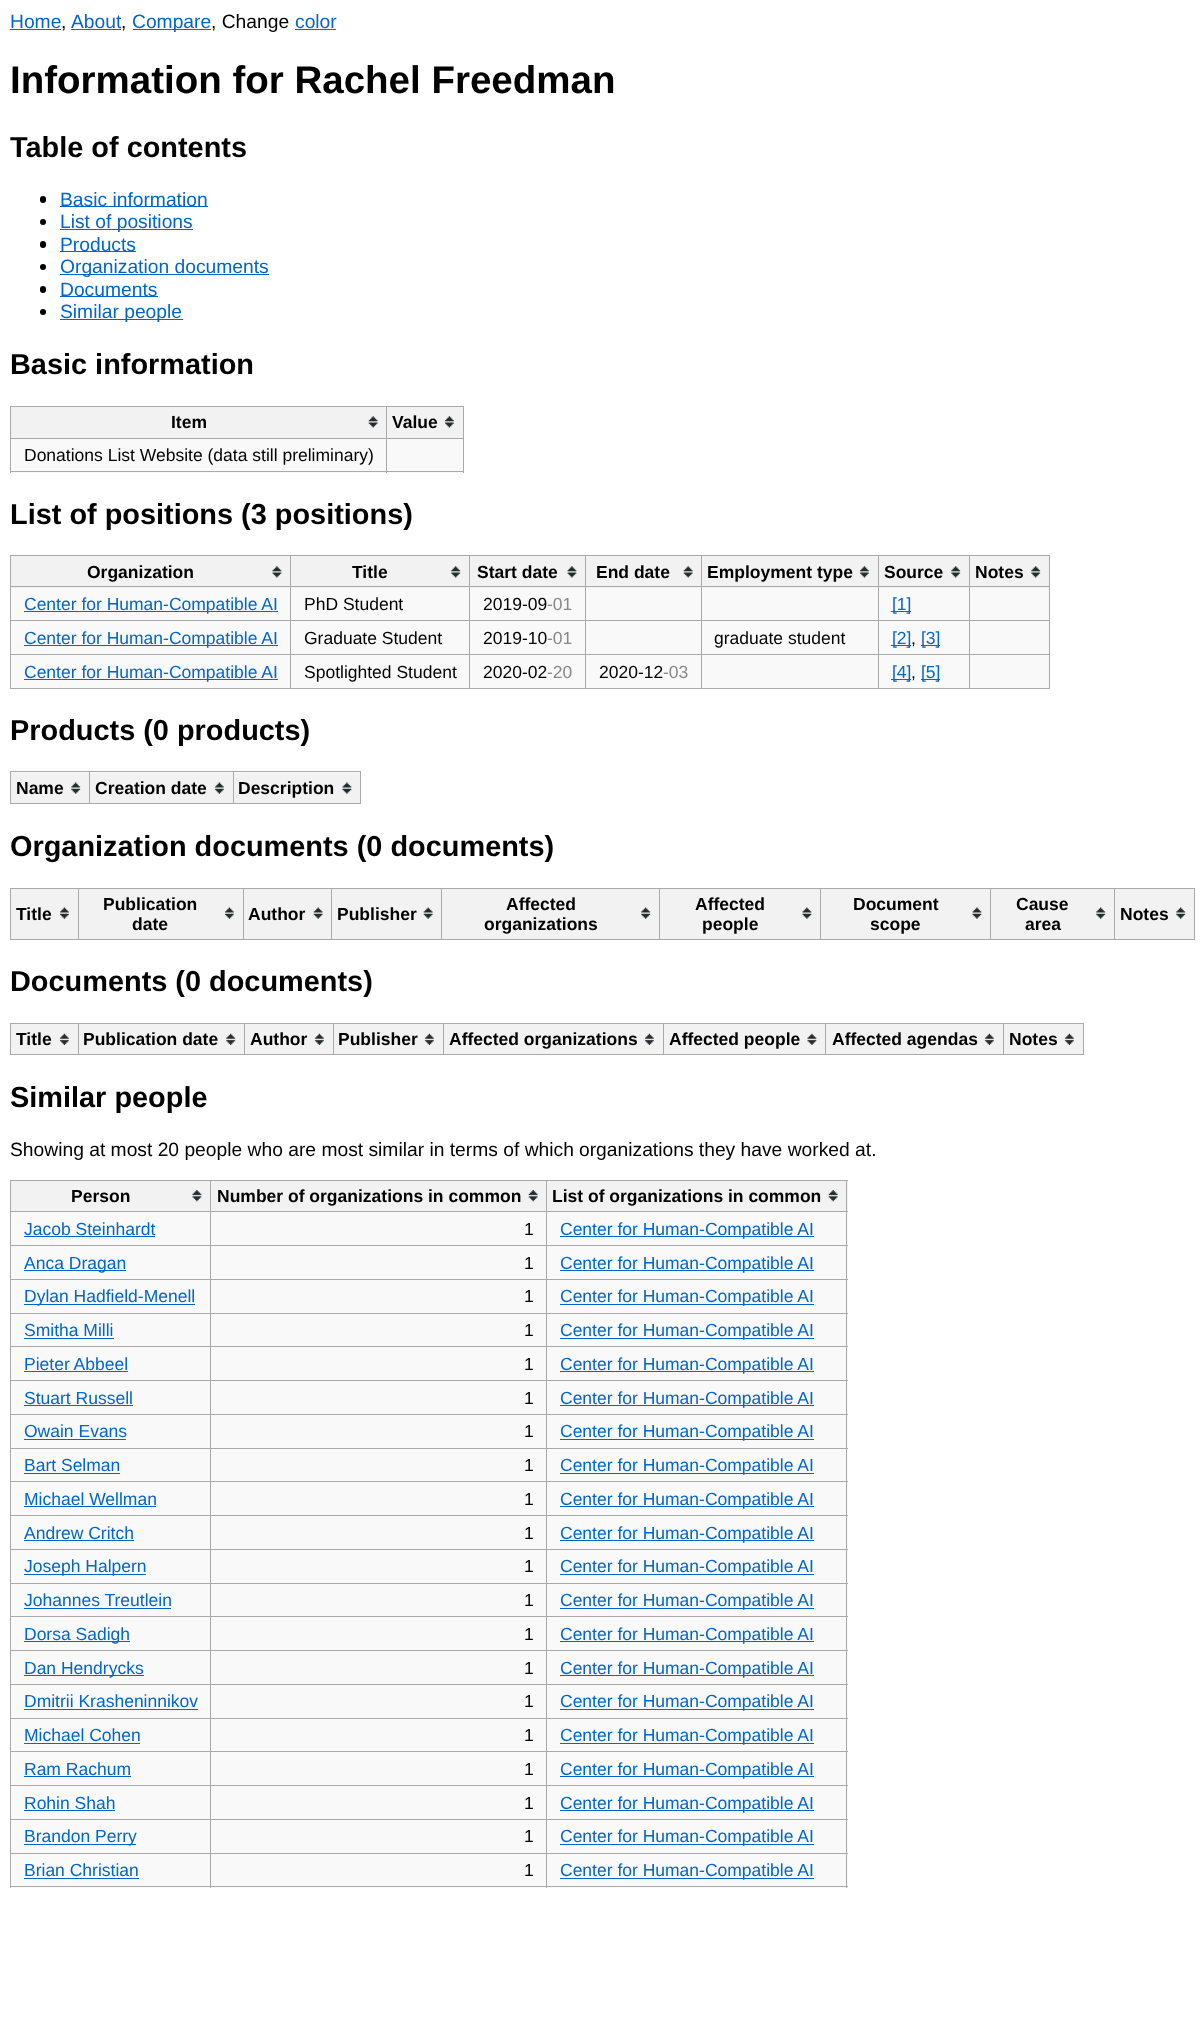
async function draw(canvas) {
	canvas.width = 1204;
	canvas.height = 2024;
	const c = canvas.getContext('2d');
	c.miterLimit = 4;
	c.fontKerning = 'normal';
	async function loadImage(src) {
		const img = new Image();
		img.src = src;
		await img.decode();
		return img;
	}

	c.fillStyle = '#fff';
	c.fillRect(0, 0, 1204, 2024);
	c.font = '19.25px Liberation Sans';
	c.fillStyle = '#06c';
	c.fillText('Home', 10, 28);
	c.fillRect(10, 29, 51, 1);
	c.fillStyle = '#000';
	c.fillText(',', 61, 28);
	c.fillStyle = '#06c';
	c.fillText('About', 71, 28);
	c.fillRect(71, 29, 50, 1);
	c.fillStyle = '#000';
	c.fillText(',', 121, 28);
	c.fillStyle = '#06c';
	c.fillRect(133, 29, 78, 1);
	c.fillText('Compare', 132, 28);
	c.fillStyle = '#000';
	c.fillText(', Change', 211, 28);
	c.fillStyle = '#06c';
	c.fillText('color', 295, 28);
	c.fillRect(295, 29, 41, 1);
	c.font = 'bold 38.5px Liberation Sans';
	c.fillStyle = '#000';
	c.fillText('Information for Rachel Freedman', 10, 93);
	c.font = 'bold 28.9px Liberation Sans';
	c.fillText('Table of contents', 10, 157);
	c.beginPath();
	c.roundRect(40, 196, 6, 7, 3);
	c.fill();
	c.fillStyle = '#06c';
	c.fillRect(60, 206, 148, 1);
	c.font = '19.25px Liberation Sans';
	c.fillText('Basic information', 60, 206);
	c.fillStyle = '#000';
	c.beginPath();
	c.arc(43, 222, 3, 0, 2 * Math.PI);
	c.fill();
	c.fillStyle = '#06c';
	c.fillRect(60, 229, 133, 1);
	c.fillText('List of positions', 60, 228);
	c.fillStyle = '#000';
	c.beginPath();
	c.roundRect(40, 241, 6, 7, 3);
	c.fill();
	c.fillStyle = '#06c';
	c.fillRect(60, 251, 76, 1);
	c.fillText('Products', 60, 251);
	c.fillStyle = '#000';
	c.beginPath();
	c.arc(43, 267, 3, 0, 2 * Math.PI);
	c.fill();
	c.fillStyle = '#06c';
	c.fillRect(60, 274, 209, 1);
	c.fillText('Organization documents', 60, 273);
	c.fillStyle = '#000';
	c.beginPath();
	c.roundRect(40, 286, 6, 7, 3);
	c.fill();
	c.fillStyle = '#06c';
	c.fillRect(60, 296, 98, 1);
	c.fillText('Documents', 60, 296);
	c.fillStyle = '#000';
	c.beginPath();
	c.arc(43, 312, 3, 0, 2 * Math.PI);
	c.fill();
	c.fillStyle = '#06c';
	c.fillRect(60, 319, 123, 1);
	c.fillText('Similar people', 60, 318);
	c.font = 'bold 28.9px Liberation Sans';
	c.fillStyle = '#000';
	c.fillText('Basic information', 10, 374);
	c.fillStyle = '#f9f9f9';
	c.fillRect(11, 439, 452, 34);
	c.fillStyle = '#f2f2f2';
	c.fillRect(11, 407, 375, 31);
	c.drawImage(await loadImage('img1.png'), 368, 416, 10, 12);
	for (const [x, y, w, h, color] of [
		[386, 406, 78, 1, '#aaa'],
		[386, 438, 78, 1, '#aaa'],
		[463, 438, 1, 35, '#aaa'],
		[386, 471, 78, 1, '#aaa'],
		[386, 438, 1, 35, '#aaa'],
		[10, 438, 378, 1, '#aaa'],
		[386, 406, 1, 33, '#aaa'],
		[10, 406, 378, 1, '#aaa'],
		[10, 471, 378, 1, '#aaa'],
		[10, 438, 1, 35, '#aaa'],
		[10, 406, 1, 33, '#aaa'],
	]) {
		c.fillStyle = color;
		c.fillRect(x, y, w, h);
	}
	c.font = 'bold 17.5px Liberation Sans';
	c.fillStyle = '#000';
	c.fillText('Item', 171, 428);
	c.fillStyle = '#f2f2f2';
	c.fillRect(387, 407, 76, 31);
	c.drawImage(await loadImage('img2.png'), 444, 416, 10, 12);
	c.fillStyle = '#aaa';
	c.fillRect(463, 406, 1, 33);
	c.fillStyle = '#000';
	c.fillText('Value', 392, 428);
	c.font = '17.5px Liberation Sans';
	c.fillText('Donations List Website (data still preliminary)', 24, 461);
	c.font = 'bold 28.9px Liberation Sans';
	c.fillText('List of positions (3 positions)', 10, 524);
	c.fillStyle = '#f9f9f9';
	c.fillRect(11, 588, 1038, 100);
	c.fillStyle = '#f2f2f2';
	c.fillRect(11, 556, 279, 32);
	c.drawImage(await loadImage('img3.png'), 272, 566, 10, 12);
	for (const [x, y, w, h, color] of [
		[969, 555, 81, 1, '#aaa'],
		[879, 556, 90, 32, '#f2f2f2'],
		[970, 556, 79, 32, '#f2f2f2'],
		[969, 586, 81, 1, '#aaa'],
		[969, 620, 81, 1, '#aaa'],
		[969, 654, 81, 1, '#aaa'],
		[1049, 654, 1, 35, '#aaa'],
		[969, 688, 81, 1, '#aaa'],
		[969, 654, 1, 35, '#aaa'],
		[878, 654, 92, 1, '#aaa'],
		[969, 620, 1, 35, '#aaa'],
		[878, 620, 92, 1, '#aaa'],
		[969, 586, 1, 35, '#aaa'],
		[878, 586, 92, 1, '#aaa'],
		[969, 555, 1, 33, '#aaa'],
		[878, 555, 92, 1, '#aaa'],
		[702, 556, 176, 32, '#f2f2f2'],
		[878, 688, 92, 1, '#aaa'],
		[878, 654, 1, 35, '#aaa'],
		[701, 654, 178, 1, '#aaa'],
		[878, 620, 1, 35, '#aaa'],
		[701, 620, 178, 1, '#aaa'],
		[878, 586, 1, 35, '#aaa'],
		[701, 586, 178, 1, '#aaa'],
		[878, 555, 1, 33, '#aaa'],
		[701, 555, 178, 1, '#aaa'],
		[586, 556, 115, 32, '#f2f2f2'],
		[701, 688, 178, 1, '#aaa'],
		[701, 654, 1, 35, '#aaa'],
		[585, 654, 118, 1, '#aaa'],
		[701, 620, 1, 35, '#aaa'],
		[585, 620, 118, 1, '#aaa'],
		[701, 586, 1, 35, '#aaa'],
		[585, 586, 118, 1, '#aaa'],
		[701, 555, 1, 33, '#aaa'],
		[585, 555, 118, 1, '#aaa'],
		[470, 556, 115, 32, '#f2f2f2'],
		[585, 688, 118, 1, '#aaa'],
		[585, 654, 1, 35, '#aaa'],
		[469, 654, 117, 1, '#aaa'],
		[585, 620, 1, 35, '#aaa'],
		[469, 620, 117, 1, '#aaa'],
		[585, 586, 1, 35, '#aaa'],
		[469, 586, 117, 1, '#aaa'],
		[585, 555, 1, 33, '#aaa'],
		[469, 555, 117, 1, '#aaa'],
		[291, 556, 178, 32, '#f2f2f2'],
		[469, 688, 117, 1, '#aaa'],
		[469, 654, 1, 35, '#aaa'],
		[290, 654, 180, 1, '#aaa'],
		[469, 620, 1, 35, '#aaa'],
		[290, 620, 180, 1, '#aaa'],
		[469, 586, 1, 35, '#aaa'],
		[290, 586, 180, 1, '#aaa'],
		[469, 555, 1, 33, '#aaa'],
		[290, 555, 180, 1, '#aaa'],
		[290, 688, 180, 1, '#aaa'],
		[290, 654, 1, 35, '#aaa'],
		[10, 654, 281, 1, '#aaa'],
		[290, 620, 1, 35, '#aaa'],
		[10, 620, 281, 1, '#aaa'],
		[290, 586, 1, 35, '#aaa'],
		[10, 586, 281, 1, '#aaa'],
		[290, 555, 1, 33, '#aaa'],
		[10, 555, 281, 1, '#aaa'],
		[10, 688, 281, 1, '#aaa'],
		[10, 654, 1, 35, '#aaa'],
		[10, 620, 1, 35, '#aaa'],
		[10, 586, 1, 35, '#aaa'],
		[10, 555, 1, 33, '#aaa'],
	]) {
		c.fillStyle = color;
		c.fillRect(x, y, w, h);
	}
	c.font = 'bold 17.5px Liberation Sans';
	c.fillStyle = '#000';
	c.fillText('Organization', 87, 578);
	c.drawImage(await loadImage('img4.png'), 451, 566, 10, 12);
	c.fillText('Title', 352, 578);
	c.drawImage(await loadImage('img5.png'), 567, 566, 10, 12);
	c.fillText('Start date', 477, 578);
	c.drawImage(await loadImage('img6.png'), 683, 566, 10, 12);
	c.fillText('End date', 596, 578);
	c.drawImage(await loadImage('img2.png'), 859, 566, 10, 12);
	c.fillText('Employment type', 707, 578);
	c.drawImage(await loadImage('img7.png'), 951, 566, 10, 12);
	c.fillText('Source', 884, 578);
	c.drawImage(await loadImage('img7.png'), 1031, 566, 10, 12);
	for (const [x, y, w, h, color] of [
		[1049, 620, 1, 35, '#aaa'],
		[1049, 586, 1, 35, '#aaa'],
		[1049, 555, 1, 33, '#aaa'],
	]) {
		c.fillStyle = color;
		c.fillRect(x, y, w, h);
	}
	c.fillStyle = '#000';
	c.fillText('Notes', 975, 578);
	c.fillStyle = '#06c';
	c.fillRect(24, 611, 254, 1);
	c.font = '17.5px Liberation Sans';
	c.fillText('Center for Human-Compatible AI', 24, 610);
	c.fillStyle = '#000';
	c.fillText('PhD Student', 304, 610);
	c.fillText('2019-09', 483, 610);
	c.fillStyle = '#888';
	c.fillText('-01', 547, 610);
	c.fillStyle = '#06c';
	c.fillRect(891, 611, 20, 1);
	c.fillText('[1]', 892, 610);
	c.fillRect(24, 645, 254, 1);
	c.fillText('Center for Human-Compatible AI', 24, 644);
	c.fillStyle = '#000';
	c.fillText('Graduate Student', 304, 644);
	c.fillText('2019-10', 483, 644);
	c.fillStyle = '#888';
	c.fillText('-01', 547, 644);
	c.fillStyle = '#000';
	c.fillText('graduate student', 714, 644);
	c.fillStyle = '#06c';
	c.fillRect(891, 645, 20, 1);
	c.fillText('[2]', 892, 644);
	c.fillStyle = '#000';
	c.fillText(',', 911, 644);
	c.fillStyle = '#06c';
	c.fillRect(921, 645, 19, 1);
	c.fillText('[3]', 921, 644);
	c.fillRect(24, 679, 254, 1);
	c.fillText('Center for Human-Compatible AI', 24, 678);
	c.fillStyle = '#000';
	c.fillText('Spotlighted Student', 304, 678);
	c.fillText('2020-02', 483, 678);
	c.fillStyle = '#888';
	c.fillText('-20', 547, 678);
	c.fillStyle = '#000';
	c.fillText('2020-12', 599, 678);
	c.fillStyle = '#888';
	c.fillText('-03', 663, 678);
	c.fillStyle = '#06c';
	c.fillRect(891, 679, 20, 1);
	c.fillText('[4]', 892, 678);
	c.fillStyle = '#000';
	c.fillText(',', 911, 678);
	c.fillStyle = '#06c';
	c.fillRect(921, 679, 19, 1);
	c.fillText('[5]', 921, 678);
	c.font = 'bold 28.9px Liberation Sans';
	c.fillStyle = '#000';
	c.fillText('Products (0 products)', 10, 740);
	c.fillStyle = '#f9f9f9';
	c.fillRect(11, 772, 349, 1);
	c.fillStyle = '#f2f2f2';
	c.fillRect(11, 773, 78, 30);
	c.drawImage(await loadImage('img8.png'), 71, 782, 10, 12);
	for (const [x, y, w, h, color] of [
		[233, 771, 128, 1, '#aaa'],
		[360, 771, 1, 33, '#aaa'],
		[233, 803, 128, 1, '#aaa'],
		[233, 771, 1, 33, '#aaa'],
		[89, 771, 145, 1, '#aaa'],
		[89, 803, 145, 1, '#aaa'],
		[89, 771, 1, 33, '#aaa'],
		[10, 771, 80, 1, '#aaa'],
		[10, 803, 80, 1, '#aaa'],
		[10, 771, 1, 33, '#aaa'],
	]) {
		c.fillStyle = color;
		c.fillRect(x, y, w, h);
	}
	c.font = 'bold 17.5px Liberation Sans';
	c.fillStyle = '#000';
	c.fillText('Name', 16, 794);
	c.fillStyle = '#f2f2f2';
	c.fillRect(90, 773, 143, 30);
	c.drawImage(await loadImage('img9.png'), 214, 782, 10, 12);
	c.fillStyle = '#000';
	c.fillText('Creation date', 95, 794);
	c.fillStyle = '#f2f2f2';
	c.fillRect(234, 773, 126, 30);
	c.drawImage(await loadImage('img10.png'), 342, 782, 10, 12);
	c.fillStyle = '#000';
	c.fillText('Description', 238, 794);
	c.font = 'bold 28.9px Liberation Sans';
	c.fillText('Organization documents (0 documents)', 10, 856);
	c.fillStyle = '#f2f2f2';
	c.fillRect(11, 889, 67, 50);
	c.drawImage(await loadImage('img9.png'), 59, 907, 10, 12);
	for (const [x, y, w, h, color] of [
		[1114, 888, 81, 1, '#aaa'],
		[1194, 888, 1, 52, '#aaa'],
		[1114, 939, 81, 1, '#aaa'],
		[1114, 888, 1, 52, '#aaa'],
		[990, 888, 125, 1, '#aaa'],
		[990, 939, 125, 1, '#aaa'],
		[990, 888, 1, 52, '#aaa'],
		[820, 888, 171, 1, '#aaa'],
		[820, 939, 171, 1, '#aaa'],
		[820, 888, 1, 52, '#aaa'],
		[659, 888, 162, 1, '#aaa'],
		[659, 939, 162, 1, '#aaa'],
		[659, 888, 1, 52, '#aaa'],
		[441, 888, 219, 1, '#aaa'],
		[332, 889, 327, 50, '#f2f2f2'],
		[441, 939, 219, 1, '#aaa'],
		[441, 888, 1, 52, '#aaa'],
		[331, 888, 112, 1, '#aaa'],
		[331, 939, 112, 1, '#aaa'],
		[331, 888, 1, 52, '#aaa'],
		[243, 888, 90, 1, '#aaa'],
		[243, 939, 90, 1, '#aaa'],
		[243, 888, 1, 52, '#aaa'],
		[78, 888, 166, 1, '#aaa'],
		[78, 939, 166, 1, '#aaa'],
		[78, 888, 1, 52, '#aaa'],
		[10, 888, 69, 1, '#aaa'],
		[10, 939, 69, 1, '#aaa'],
		[10, 888, 1, 52, '#aaa'],
	]) {
		c.fillStyle = color;
		c.fillRect(x, y, w, h);
	}
	c.font = 'bold 17.5px Liberation Sans';
	c.fillStyle = '#000';
	c.fillText('Title', 16, 920);
	c.fillStyle = '#f2f2f2';
	c.fillRect(79, 889, 164, 50);
	c.drawImage(await loadImage('img9.png'), 224, 907, 10, 12);
	c.fillStyle = '#000';
	c.fillText('Publication', 103, 910);
	c.fillText('date', 132, 930);
	c.fillStyle = '#f2f2f2';
	c.fillRect(244, 889, 87, 50);
	c.drawImage(await loadImage('img11.png'), 313, 907, 10, 12);
	c.fillStyle = '#000';
	c.fillText('Author', 248, 920);
	c.drawImage(await loadImage('img12.png'), 423, 907, 10, 12);
	c.fillText('Publisher', 337, 920);
	c.drawImage(await loadImage('img13.png'), 641, 907, 10, 12);
	c.fillText('Affected', 506, 910);
	c.fillText('organizations', 484, 930);
	c.fillStyle = '#f2f2f2';
	c.fillRect(660, 889, 160, 50);
	c.drawImage(await loadImage('img10.png'), 802, 907, 10, 12);
	c.fillStyle = '#000';
	c.fillText('Affected', 695, 910);
	c.fillText('people', 702, 930);
	c.fillStyle = '#f2f2f2';
	c.fillRect(821, 889, 169, 50);
	c.drawImage(await loadImage('img14.png'), 972, 907, 10, 12);
	c.fillStyle = '#000';
	c.fillText('Document', 853, 910);
	c.fillText('scope', 870, 930);
	c.fillStyle = '#f2f2f2';
	c.fillRect(991, 889, 123, 50);
	c.drawImage(await loadImage('img8.png'), 1096, 907, 10, 12);
	c.fillStyle = '#000';
	c.fillText('Cause', 1016, 910);
	c.fillText('area', 1025, 930);
	c.fillStyle = '#f2f2f2';
	c.fillRect(1115, 889, 79, 50);
	c.drawImage(await loadImage('img8.png'), 1176, 907, 10, 12);
	c.fillStyle = '#000';
	c.fillText('Notes', 1120, 920);
	c.font = 'bold 28.9px Liberation Sans';
	c.fillText('Documents (0 documents)', 10, 991);
	c.fillStyle = '#f2f2f2';
	c.fillRect(11, 1024, 67, 30);
	c.drawImage(await loadImage('img15.png'), 59, 1033, 10, 12);
	for (const [x, y, w, h, color] of [
		[1003, 1023, 81, 1, '#aaa'],
		[1083, 1023, 1, 32, '#aaa'],
		[1003, 1054, 81, 1, '#aaa'],
		[1003, 1023, 1, 32, '#aaa'],
		[825, 1023, 179, 1, '#aaa'],
		[825, 1054, 179, 1, '#aaa'],
		[825, 1023, 1, 32, '#aaa'],
		[663, 1023, 163, 1, '#aaa'],
		[663, 1054, 163, 1, '#aaa'],
		[663, 1023, 1, 32, '#aaa'],
		[443, 1023, 221, 1, '#aaa'],
		[443, 1054, 221, 1, '#aaa'],
		[443, 1023, 1, 32, '#aaa'],
		[333, 1023, 111, 1, '#aaa'],
		[333, 1054, 111, 1, '#aaa'],
		[333, 1023, 1, 32, '#aaa'],
		[244, 1023, 90, 1, '#aaa'],
		[244, 1054, 90, 1, '#aaa'],
		[244, 1023, 1, 32, '#aaa'],
		[78, 1023, 167, 1, '#aaa'],
		[78, 1054, 167, 1, '#aaa'],
		[78, 1023, 1, 32, '#aaa'],
		[10, 1023, 69, 1, '#aaa'],
		[10, 1054, 69, 1, '#aaa'],
		[10, 1023, 1, 32, '#aaa'],
	]) {
		c.fillStyle = color;
		c.fillRect(x, y, w, h);
	}
	c.font = 'bold 17.5px Liberation Sans';
	c.fillStyle = '#000';
	c.fillText('Title', 16, 1045);
	c.fillStyle = '#f2f2f2';
	c.fillRect(79, 1024, 165, 30);
	c.drawImage(await loadImage('img16.png'), 226, 1033, 10, 12);
	c.fillStyle = '#000';
	c.fillText('Publication date', 83, 1045);
	c.fillStyle = '#f2f2f2';
	c.fillRect(245, 1024, 88, 30);
	c.drawImage(await loadImage('img15.png'), 314, 1033, 10, 12);
	c.fillStyle = '#000';
	c.fillText('Author', 250, 1045);
	c.fillStyle = '#f2f2f2';
	c.fillRect(334, 1024, 109, 30);
	c.drawImage(await loadImage('img15.png'), 424, 1033, 10, 12);
	c.fillStyle = '#000';
	c.fillText('Publisher', 338, 1045);
	c.fillStyle = '#f2f2f2';
	c.fillRect(444, 1024, 219, 30);
	c.drawImage(await loadImage('img15.png'), 644, 1033, 10, 12);
	c.fillStyle = '#000';
	c.fillText('Affected organizations', 449, 1045);
	c.fillStyle = '#f2f2f2';
	c.fillRect(664, 1024, 161, 30);
	c.drawImage(await loadImage('img17.png'), 807, 1033, 10, 12);
	c.fillStyle = '#000';
	c.fillText('Affected people', 669, 1045);
	c.fillStyle = '#f2f2f2';
	c.fillRect(826, 1024, 177, 30);
	c.drawImage(await loadImage('img15.png'), 984, 1033, 10, 12);
	c.fillStyle = '#000';
	c.fillText('Affected agendas', 832, 1045);
	c.fillStyle = '#f2f2f2';
	c.fillRect(1004, 1024, 79, 30);
	c.drawImage(await loadImage('img15.png'), 1064, 1033, 10, 12);
	c.fillStyle = '#000';
	c.fillText('Notes', 1009, 1045);
	c.font = 'bold 28.9px Liberation Sans';
	c.fillText('Similar people', 10, 1107);
	c.font = '19.25px Liberation Sans';
	c.fillText('Showing at most 20 people who are most similar in terms of which', 10, 1156);
	c.fillText('organizations they have worked at.', 579, 1156);
	c.fillStyle = '#f9f9f9';
	c.fillRect(11, 1212, 837, 676);
	c.fillStyle = '#f2f2f2';
	c.fillRect(11, 1181, 199, 30);
	c.drawImage(await loadImage('img18.png'), 192, 1190, 10, 12);
	for (const [x, y, w, h, color] of [
		[546, 1180, 302, 1, '#aaa'],
		[546, 1211, 302, 1, '#aaa'],
		[546, 1245, 302, 1, '#aaa'],
		[546, 1279, 302, 1, '#aaa'],
		[546, 1313, 302, 1, '#aaa'],
		[546, 1346, 302, 1, '#aaa'],
		[546, 1380, 302, 1, '#aaa'],
		[546, 1414, 302, 1, '#aaa'],
		[546, 1448, 302, 1, '#aaa'],
		[546, 1481, 302, 1, '#aaa'],
		[546, 1515, 302, 1, '#aaa'],
		[546, 1549, 302, 1, '#aaa'],
		[546, 1583, 302, 1, '#aaa'],
		[546, 1616, 302, 1, '#aaa'],
		[546, 1650, 302, 1, '#aaa'],
		[546, 1684, 302, 1, '#aaa'],
		[546, 1718, 302, 1, '#aaa'],
		[546, 1751, 302, 1, '#aaa'],
		[546, 1785, 302, 1, '#aaa'],
		[546, 1819, 302, 1, '#aaa'],
		[546, 1853, 302, 1, '#aaa'],
		[846, 1853, 1, 35, '#aaa'],
		[546, 1886, 302, 1, '#aaa'],
		[546, 1853, 1, 35, '#aaa'],
		[210, 1853, 338, 1, '#aaa'],
		[546, 1819, 1, 35, '#aaa'],
		[210, 1819, 338, 1, '#aaa'],
		[546, 1785, 1, 35, '#aaa'],
		[210, 1785, 338, 1, '#aaa'],
		[546, 1751, 1, 35, '#aaa'],
		[210, 1751, 338, 1, '#aaa'],
		[546, 1718, 1, 35, '#aaa'],
		[210, 1718, 338, 1, '#aaa'],
		[546, 1684, 1, 35, '#aaa'],
		[210, 1684, 338, 1, '#aaa'],
		[546, 1650, 1, 35, '#aaa'],
		[210, 1650, 338, 1, '#aaa'],
		[546, 1616, 1, 35, '#aaa'],
		[210, 1616, 338, 1, '#aaa'],
		[546, 1583, 1, 35, '#aaa'],
		[210, 1583, 338, 1, '#aaa'],
		[546, 1549, 1, 35, '#aaa'],
		[210, 1549, 338, 1, '#aaa'],
		[546, 1515, 1, 35, '#aaa'],
		[210, 1515, 338, 1, '#aaa'],
		[546, 1481, 1, 35, '#aaa'],
		[210, 1481, 338, 1, '#aaa'],
		[546, 1448, 1, 35, '#aaa'],
		[210, 1448, 338, 1, '#aaa'],
		[546, 1414, 1, 35, '#aaa'],
		[210, 1414, 338, 1, '#aaa'],
		[546, 1380, 1, 35, '#aaa'],
		[210, 1380, 338, 1, '#aaa'],
		[546, 1346, 1, 35, '#aaa'],
		[210, 1346, 338, 1, '#aaa'],
		[546, 1313, 1, 35, '#aaa'],
		[210, 1313, 338, 1, '#aaa'],
		[546, 1279, 1, 35, '#aaa'],
		[210, 1279, 338, 1, '#aaa'],
		[546, 1245, 1, 35, '#aaa'],
		[210, 1245, 338, 1, '#aaa'],
		[546, 1211, 1, 35, '#aaa'],
		[210, 1211, 338, 1, '#aaa'],
		[546, 1180, 1, 33, '#aaa'],
		[210, 1180, 338, 1, '#aaa'],
		[210, 1886, 338, 1, '#aaa'],
		[210, 1853, 1, 35, '#aaa'],
		[10, 1853, 201, 1, '#aaa'],
		[210, 1819, 1, 35, '#aaa'],
		[10, 1819, 201, 1, '#aaa'],
		[210, 1785, 1, 35, '#aaa'],
		[10, 1785, 201, 1, '#aaa'],
		[210, 1751, 1, 35, '#aaa'],
		[10, 1751, 201, 1, '#aaa'],
		[210, 1718, 1, 35, '#aaa'],
		[10, 1718, 201, 1, '#aaa'],
		[210, 1684, 1, 35, '#aaa'],
		[10, 1684, 201, 1, '#aaa'],
		[210, 1650, 1, 35, '#aaa'],
		[10, 1650, 201, 1, '#aaa'],
		[210, 1616, 1, 35, '#aaa'],
		[10, 1616, 201, 1, '#aaa'],
		[210, 1583, 1, 35, '#aaa'],
		[10, 1583, 201, 1, '#aaa'],
		[210, 1549, 1, 35, '#aaa'],
		[10, 1549, 201, 1, '#aaa'],
		[210, 1515, 1, 35, '#aaa'],
		[10, 1515, 201, 1, '#aaa'],
		[210, 1481, 1, 35, '#aaa'],
		[10, 1481, 201, 1, '#aaa'],
		[210, 1448, 1, 35, '#aaa'],
		[10, 1448, 201, 1, '#aaa'],
		[210, 1414, 1, 35, '#aaa'],
		[10, 1414, 201, 1, '#aaa'],
		[210, 1380, 1, 35, '#aaa'],
		[10, 1380, 201, 1, '#aaa'],
		[210, 1346, 1, 35, '#aaa'],
		[10, 1346, 201, 1, '#aaa'],
		[210, 1313, 1, 35, '#aaa'],
		[10, 1313, 201, 1, '#aaa'],
		[210, 1279, 1, 35, '#aaa'],
		[10, 1279, 201, 1, '#aaa'],
		[210, 1245, 1, 35, '#aaa'],
		[10, 1245, 201, 1, '#aaa'],
		[210, 1211, 1, 35, '#aaa'],
		[10, 1211, 201, 1, '#aaa'],
		[210, 1180, 1, 33, '#aaa'],
		[10, 1180, 201, 1, '#aaa'],
		[10, 1886, 201, 1, '#aaa'],
		[10, 1853, 1, 35, '#aaa'],
		[10, 1819, 1, 35, '#aaa'],
		[10, 1785, 1, 35, '#aaa'],
		[10, 1751, 1, 35, '#aaa'],
		[10, 1718, 1, 35, '#aaa'],
		[10, 1684, 1, 35, '#aaa'],
		[10, 1650, 1, 35, '#aaa'],
		[10, 1616, 1, 35, '#aaa'],
		[10, 1583, 1, 35, '#aaa'],
		[10, 1549, 1, 35, '#aaa'],
		[10, 1515, 1, 35, '#aaa'],
		[10, 1481, 1, 35, '#aaa'],
		[10, 1448, 1, 35, '#aaa'],
		[10, 1414, 1, 35, '#aaa'],
		[10, 1380, 1, 35, '#aaa'],
		[10, 1346, 1, 35, '#aaa'],
		[10, 1313, 1, 35, '#aaa'],
		[10, 1279, 1, 35, '#aaa'],
		[10, 1245, 1, 35, '#aaa'],
		[10, 1211, 1, 35, '#aaa'],
		[10, 1180, 1, 33, '#aaa'],
	]) {
		c.fillStyle = color;
		c.fillRect(x, y, w, h);
	}
	c.font = 'bold 17.5px Liberation Sans';
	c.fillStyle = '#000';
	c.fillText('Person', 71, 1202);
	c.fillStyle = '#f2f2f2';
	c.fillRect(211, 1181, 335, 30);
	c.drawImage(await loadImage('img19.png'), 528, 1190, 10, 12);
	c.fillStyle = '#000';
	c.fillText('Number of organizations in common', 217, 1202);
	c.fillStyle = '#f2f2f2';
	c.fillRect(547, 1181, 301, 30);
	c.drawImage(await loadImage('img19.png'), 828, 1190, 10, 12);
	for (const [x, y, w, h, color] of [
		[846, 1819, 1, 35, '#aaa'],
		[846, 1785, 1, 35, '#aaa'],
		[846, 1751, 1, 35, '#aaa'],
		[846, 1718, 1, 35, '#aaa'],
		[846, 1684, 1, 35, '#aaa'],
		[846, 1650, 1, 35, '#aaa'],
		[846, 1616, 1, 35, '#aaa'],
		[846, 1583, 1, 35, '#aaa'],
		[846, 1549, 1, 35, '#aaa'],
		[846, 1515, 1, 35, '#aaa'],
		[846, 1481, 1, 35, '#aaa'],
		[846, 1448, 1, 35, '#aaa'],
		[846, 1414, 1, 35, '#aaa'],
		[846, 1380, 1, 35, '#aaa'],
		[846, 1346, 1, 35, '#aaa'],
		[846, 1313, 1, 35, '#aaa'],
		[846, 1279, 1, 35, '#aaa'],
		[846, 1245, 1, 35, '#aaa'],
		[846, 1211, 1, 35, '#aaa'],
		[846, 1180, 1, 33, '#aaa'],
	]) {
		c.fillStyle = color;
		c.fillRect(x, y, w, h);
	}
	c.fillStyle = '#000';
	c.fillText('List of organizations in common', 552, 1202);
	c.font = '17.5px Liberation Sans';
	c.fillStyle = '#06c';
	c.fillText('Jacob Steinhardt', 24, 1235);
	c.fillRect(24, 1236, 131, 1);
	c.fillStyle = '#000';
	c.fillText('1', 524, 1235);
	c.fillStyle = '#06c';
	c.fillRect(560, 1236, 254, 1);
	c.fillText('Center for Human-Compatible AI', 560, 1235);
	c.fillRect(24, 1270, 102, 1);
	c.fillText('Anca Dragan', 24, 1269);
	c.fillStyle = '#000';
	c.fillText('1', 524, 1269);
	c.fillStyle = '#06c';
	c.fillRect(560, 1270, 254, 1);
	c.fillText('Center for Human-Compatible AI', 560, 1269);
	c.fillRect(24, 1304, 171, 1);
	c.fillText('Dylan Hadfield-Menell', 24, 1302);
	c.fillStyle = '#000';
	c.fillText('1', 524, 1302);
	c.fillStyle = '#06c';
	c.fillRect(560, 1304, 254, 1);
	c.fillText('Center for Human-Compatible AI', 560, 1302);
	c.fillText('Smitha Milli', 24, 1336);
	c.fillRect(24, 1338, 90, 1);
	c.fillStyle = '#000';
	c.fillText('1', 524, 1336);
	c.fillStyle = '#06c';
	c.fillRect(560, 1338, 254, 1);
	c.fillText('Center for Human-Compatible AI', 560, 1336);
	c.fillText('Pieter Abbeel', 24, 1370);
	c.fillRect(24, 1371, 104, 1);
	c.fillStyle = '#000';
	c.fillText('1', 524, 1370);
	c.fillStyle = '#06c';
	c.fillRect(560, 1371, 254, 1);
	c.fillText('Center for Human-Compatible AI', 560, 1370);
	c.fillText('Stuart Russell', 24, 1404);
	c.fillRect(24, 1405, 109, 1);
	c.fillStyle = '#000';
	c.fillText('1', 524, 1404);
	c.fillStyle = '#06c';
	c.fillRect(560, 1405, 254, 1);
	c.fillText('Center for Human-Compatible AI', 560, 1404);
	c.fillText('Owain Evans', 24, 1437);
	c.fillRect(24, 1439, 102, 1);
	c.fillStyle = '#000';
	c.fillText('1', 524, 1437);
	c.fillStyle = '#06c';
	c.fillRect(560, 1439, 254, 1);
	c.fillText('Center for Human-Compatible AI', 560, 1437);
	c.fillText('Bart Selman', 24, 1471);
	c.fillRect(24, 1473, 96, 1);
	c.fillStyle = '#000';
	c.fillText('1', 524, 1471);
	c.fillStyle = '#06c';
	c.fillRect(560, 1473, 254, 1);
	c.fillText('Center for Human-Compatible AI', 560, 1471);
	c.fillText('Michael Wellman', 24, 1505);
	c.fillRect(24, 1506, 132, 1);
	c.fillStyle = '#000';
	c.fillText('1', 524, 1505);
	c.fillStyle = '#06c';
	c.fillRect(560, 1506, 254, 1);
	c.fillText('Center for Human-Compatible AI', 560, 1505);
	c.fillText('Andrew Critch', 24, 1539);
	c.fillRect(24, 1540, 110, 1);
	c.fillStyle = '#000';
	c.fillText('1', 524, 1539);
	c.fillStyle = '#06c';
	c.fillRect(560, 1540, 254, 1);
	c.fillText('Center for Human-Compatible AI', 560, 1539);
	c.fillRect(24, 1574, 122, 1);
	c.fillText('Joseph Halpern', 24, 1572);
	c.fillStyle = '#000';
	c.fillText('1', 524, 1572);
	c.fillStyle = '#06c';
	c.fillRect(560, 1574, 254, 1);
	c.fillText('Center for Human-Compatible AI', 560, 1572);
	c.fillText('Johannes Treutlein', 24, 1606);
	c.fillRect(24, 1608, 147, 1);
	c.fillStyle = '#000';
	c.fillText('1', 524, 1606);
	c.fillStyle = '#06c';
	c.fillRect(560, 1608, 254, 1);
	c.fillText('Center for Human-Compatible AI', 560, 1606);
	c.fillRect(24, 1641, 106, 1);
	c.fillText('Dorsa Sadigh', 24, 1640);
	c.fillStyle = '#000';
	c.fillText('1', 524, 1640);
	c.fillStyle = '#06c';
	c.fillRect(560, 1641, 254, 1);
	c.fillText('Center for Human-Compatible AI', 560, 1640);
	c.fillRect(24, 1675, 120, 1);
	c.fillText('Dan Hendrycks', 24, 1674);
	c.fillStyle = '#000';
	c.fillText('1', 524, 1674);
	c.fillStyle = '#06c';
	c.fillRect(560, 1675, 254, 1);
	c.fillText('Center for Human-Compatible AI', 560, 1674);
	c.fillText('Dmitrii Krasheninnikov', 24, 1707);
	c.fillRect(24, 1709, 174, 1);
	c.fillStyle = '#000';
	c.fillText('1', 524, 1707);
	c.fillStyle = '#06c';
	c.fillRect(560, 1709, 254, 1);
	c.fillText('Center for Human-Compatible AI', 560, 1707);
	c.fillText('Michael Cohen', 24, 1741);
	c.fillRect(24, 1743, 116, 1);
	c.fillStyle = '#000';
	c.fillText('1', 524, 1741);
	c.fillStyle = '#06c';
	c.fillRect(560, 1743, 254, 1);
	c.fillText('Center for Human-Compatible AI', 560, 1741);
	c.fillText('Ram Rachum', 24, 1775);
	c.fillRect(24, 1776, 107, 1);
	c.fillStyle = '#000';
	c.fillText('1', 524, 1775);
	c.fillStyle = '#06c';
	c.fillRect(560, 1776, 254, 1);
	c.fillText('Center for Human-Compatible AI', 560, 1775);
	c.fillText('Rohin Shah', 24, 1809);
	c.fillRect(24, 1810, 91, 1);
	c.fillStyle = '#000';
	c.fillText('1', 524, 1809);
	c.fillStyle = '#06c';
	c.fillRect(560, 1810, 254, 1);
	c.fillText('Center for Human-Compatible AI', 560, 1809);
	c.fillRect(24, 1844, 112, 1);
	c.fillText('Brandon Perry', 24, 1842);
	c.fillStyle = '#000';
	c.fillText('1', 524, 1842);
	c.fillStyle = '#06c';
	c.fillRect(560, 1844, 254, 1);
	c.fillText('Center for Human-Compatible AI', 560, 1842);
	c.fillText('Brian Christian', 24, 1876);
	c.fillRect(24, 1878, 115, 1);
	c.fillStyle = '#000';
	c.fillText('1', 524, 1876);
	c.fillStyle = '#06c';
	c.fillRect(560, 1878, 254, 1);
	c.fillText('Center for Human-Compatible AI', 560, 1876);
}

draw(document.querySelector('canvas'));
